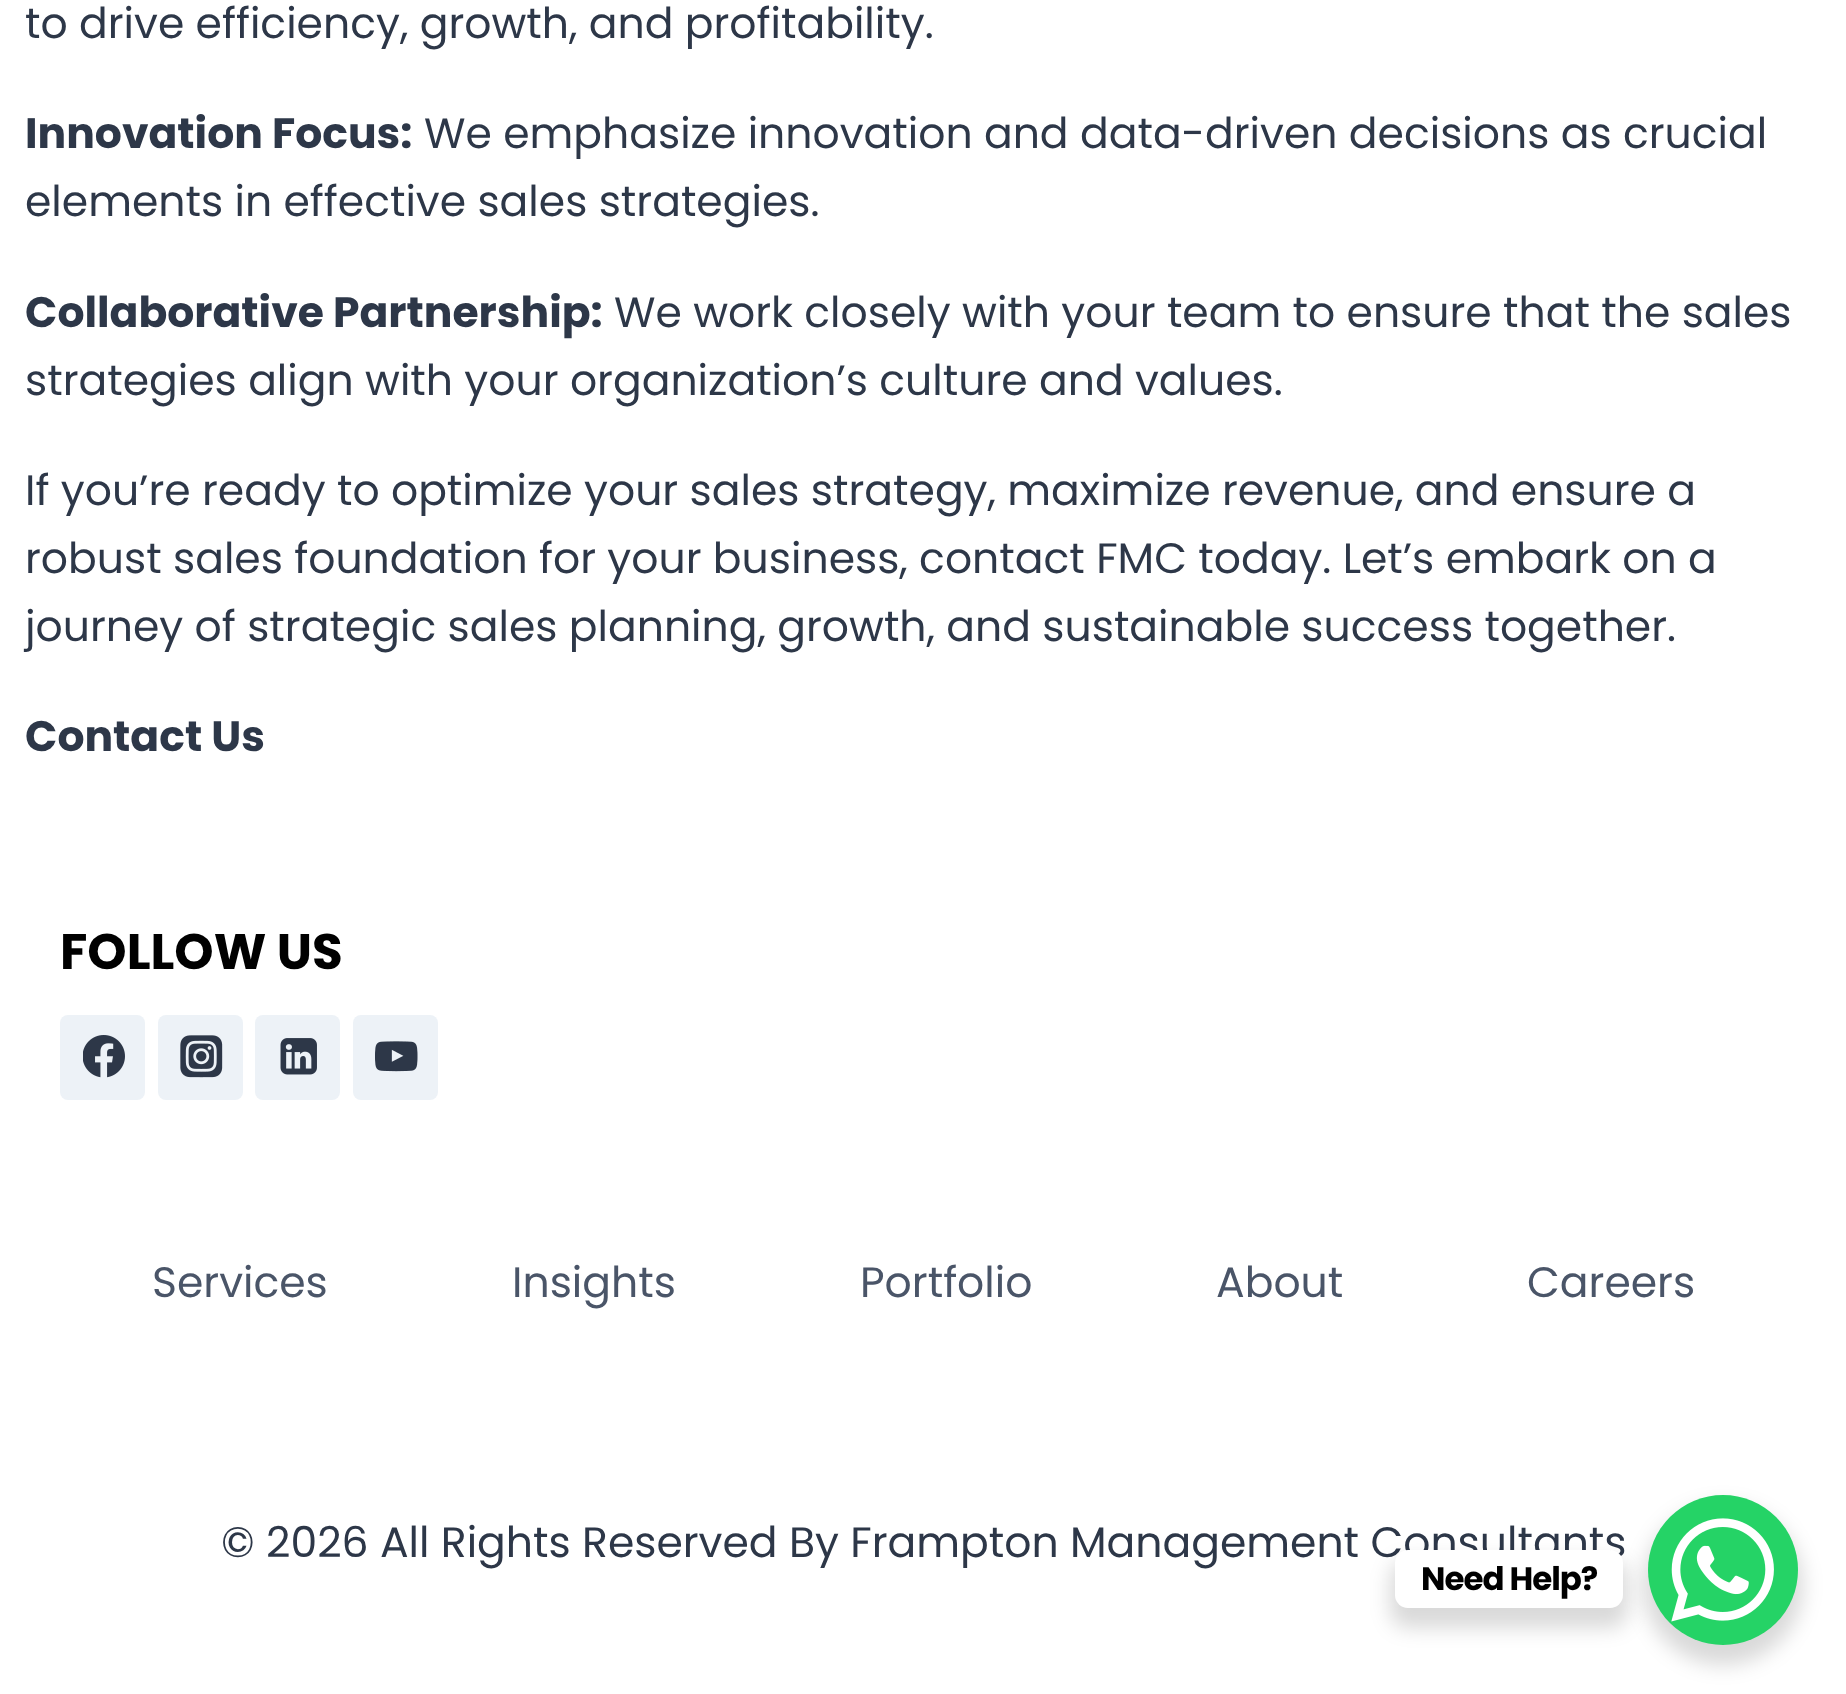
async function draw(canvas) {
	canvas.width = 1846;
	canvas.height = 1694;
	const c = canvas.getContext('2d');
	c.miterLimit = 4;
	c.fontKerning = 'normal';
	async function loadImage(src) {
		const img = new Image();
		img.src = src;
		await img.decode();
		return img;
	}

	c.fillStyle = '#fff';
	c.fillRect(0, 0, 1846, 1694);
	c.font = '42.5px Poppins';
	c.fillStyle = '#2d3748';
	c.fillText('to drive efficiency, growth, and profitability.', 25, 38);
	c.font = 'bold 42.5px Poppins';
	c.fillText('Innovation Focus:', 25, 148);
	c.font = '42.5px Poppins';
	c.fillText('We emphasize innovation and data-driven decisions as crucial', 424, 148);
	c.fillText('elements in effective sales strategies.', 25, 216);
	c.font = 'bold 42.5px Poppins';
	c.fillText('Collaborative Partnership:', 25, 327);
	c.font = '42.5px Poppins';
	for (const [text, x, y] of [
		['We work closely with your team to ensure that the sales', 614, 327],
		['strategies align with your organization’s culture and values.', 25, 395],
		['If you’re ready to optimize your sales strategy, maximize revenue, and ensure a', 25, 505],
		['robust sales foundation for your business, contact FMC today. Let’s embark on a', 25, 573],
		['journey of strategic sales planning, growth, and sustainable success together.', 25, 641],
	]) {
		c.fillText(text, x, y);
	}
	c.font = 'bold 42.5px Poppins';
	c.fillText('Contact Us', 25, 751);
	c.font = 'bold 50px Poppins';
	c.fillStyle = '#000';
	c.fillText('FOLLOW US', 60, 969);
	c.fillStyle = '#edf2f7';
	c.beginPath();
	c.roundRect(60, 1015, 85, 85, 8);
	c.fill();
	c.drawImage(await loadImage('img1.png'), 83, 1035, 42, 43);
	c.beginPath();
	c.roundRect(158, 1015, 85, 85, 8);
	c.fill();
	c.drawImage(await loadImage('img2.png'), 180, 1035, 43, 43);
	c.beginPath();
	c.roundRect(255, 1015, 85, 85, 8);
	c.fill();
	c.drawImage(await loadImage('img3.png'), 280, 1038, 37, 37);
	c.beginPath();
	c.roundRect(353, 1015, 85, 85, 8);
	c.fill();
	c.drawImage(await loadImage('img4.png'), 375, 1041, 43, 31);
	c.font = '42.5px Poppins';
	c.fillStyle = '#4a5568';
	for (const [text, x, y] of [
		['Services', 152, 1297],
		['Insights', 512, 1297],
		['Portfolio', 860, 1297],
		['About', 1216, 1297],
		['Careers', 1527, 1297],
	]) {
		c.fillText(text, x, y);
	}
	c.fillStyle = '#2d3748';
	c.fillText('© 2026 All Rights Reserved By Frampton Management Consultants', 221, 1557);
	c.fillStyle = '#00000026';
	c.filter = 'blur(10px)';
	c.beginPath();
	c.roundRect(1643, 1505, 160, 160, 80);
	c.fill();
	c.filter = 'none';
	c.fillStyle = '#25d366';
	c.beginPath();
	c.arc(1723, 1570, 75, 0, 2 * Math.PI);
	c.fill();
	c.fillStyle = '#00000026';
	c.filter = 'blur(10px)';
	c.beginPath();
	c.roundRect(1390, 1560, 238, 68, 18);
	c.fill();
	c.filter = 'none';
	c.fillStyle = '#fff';
	c.beginPath();
	c.roundRect(1395, 1550, 228, 58, 13);
	c.fill();
	c.letterSpacing = '-1px';
	c.font = 'bold 32.5px Poppins';
	c.fillStyle = '#000';
	c.fillText('Need Help?', 1421, 1590);
	c.drawImage(await loadImage('img5.png'), 1671, 1518, 103, 104);
}

draw(document.querySelector('canvas'));
